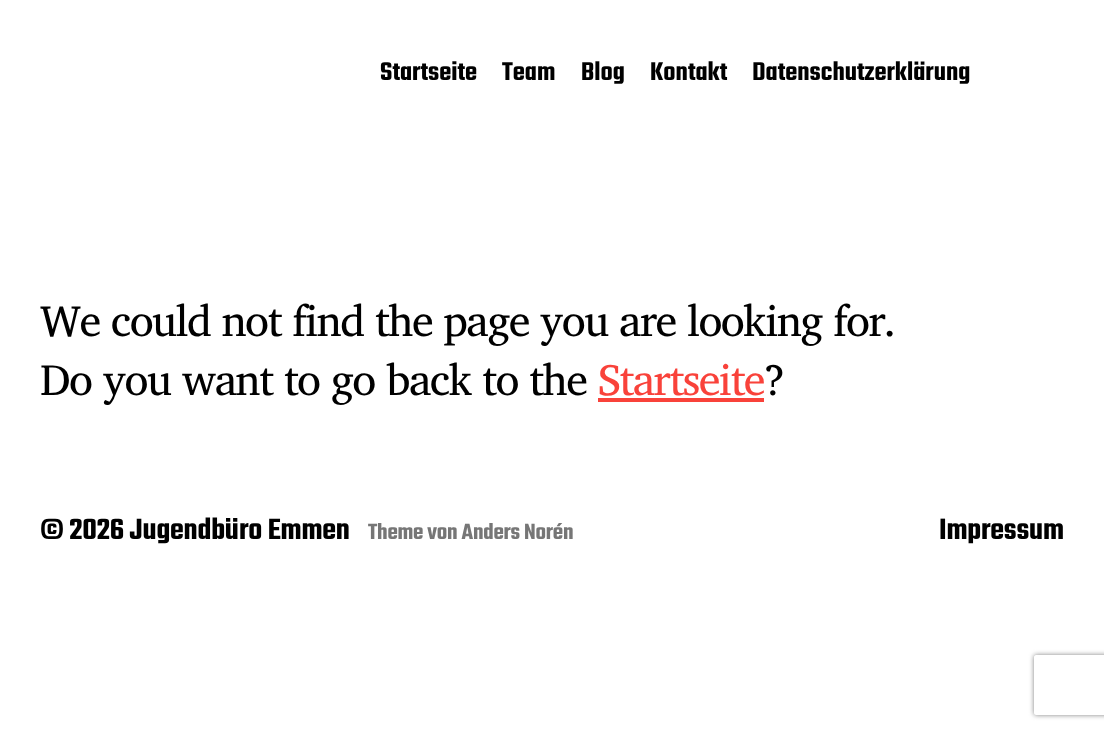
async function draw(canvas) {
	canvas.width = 1104;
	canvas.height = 729;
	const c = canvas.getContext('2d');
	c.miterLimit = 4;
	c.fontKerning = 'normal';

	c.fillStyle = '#fff';
	c.fillRect(0, 0, 1104, 729);
	c.font = '600 28px Teko';
	c.fillStyle = '#000';
	for (const [text, x, y] of [
		['Startseite', 380, 80],
		['Team', 502, 80],
		['Blog', 581, 80],
		['Kontakt', 650, 80],
		['Datenschutzerklärung', 752, 80],
	]) {
		c.fillText(text, x, y);
	}
	c.letterSpacing = '-1.55px';
	c.font = '44px Charis SIL';
	c.fillText('We could not find the page you are looking for.', 40, 336);
	c.fillText('Do you want to go back to the', 40, 395);
	c.fillStyle = '#f9423a';
	c.fillText('Startseite', 598, 395);
	c.fillRect(598, 398, 166, 4);
	c.fillStyle = '#000';
	c.fillText('?', 764, 395);
	c.letterSpacing = '-0.2px';
	c.font = '600 32px Teko';
	c.fillText('© 2026 Jugendbüro Emmen', 40, 539);
	c.font = '600 24px Teko';
	c.fillStyle = '#767676';
	c.fillText('Theme von Anders Norén', 368, 539);
	c.font = '600 32px Teko';
	c.fillStyle = '#000';
	c.fillText('Impressum', 939, 539);
	c.save();
	c.beginPath();
	c.moveTo(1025, 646);
	c.lineTo(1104, 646);
	c.lineTo(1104, 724);
	c.lineTo(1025, 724);
	c.closePath();
	c.moveTo(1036, 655);
	c.lineTo(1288, 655);
	c.bezierCurveTo(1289, 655, 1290, 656, 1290, 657);
	c.lineTo(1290, 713);
	c.bezierCurveTo(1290, 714, 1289, 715, 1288, 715);
	c.lineTo(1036, 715);
	c.bezierCurveTo(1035, 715, 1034, 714, 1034, 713);
	c.lineTo(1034, 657);
	c.bezierCurveTo(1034, 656, 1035, 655, 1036, 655);
	c.closePath();
	c.clip('evenodd');
	c.fillStyle = '#808080';
	c.filter = 'blur(2.5px)';
	c.beginPath();
	c.roundRect(1034, 655, 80, 60, 2);
	c.fill();
	c.filter = 'none';
	c.restore();
}

draw(document.querySelector('canvas'));
